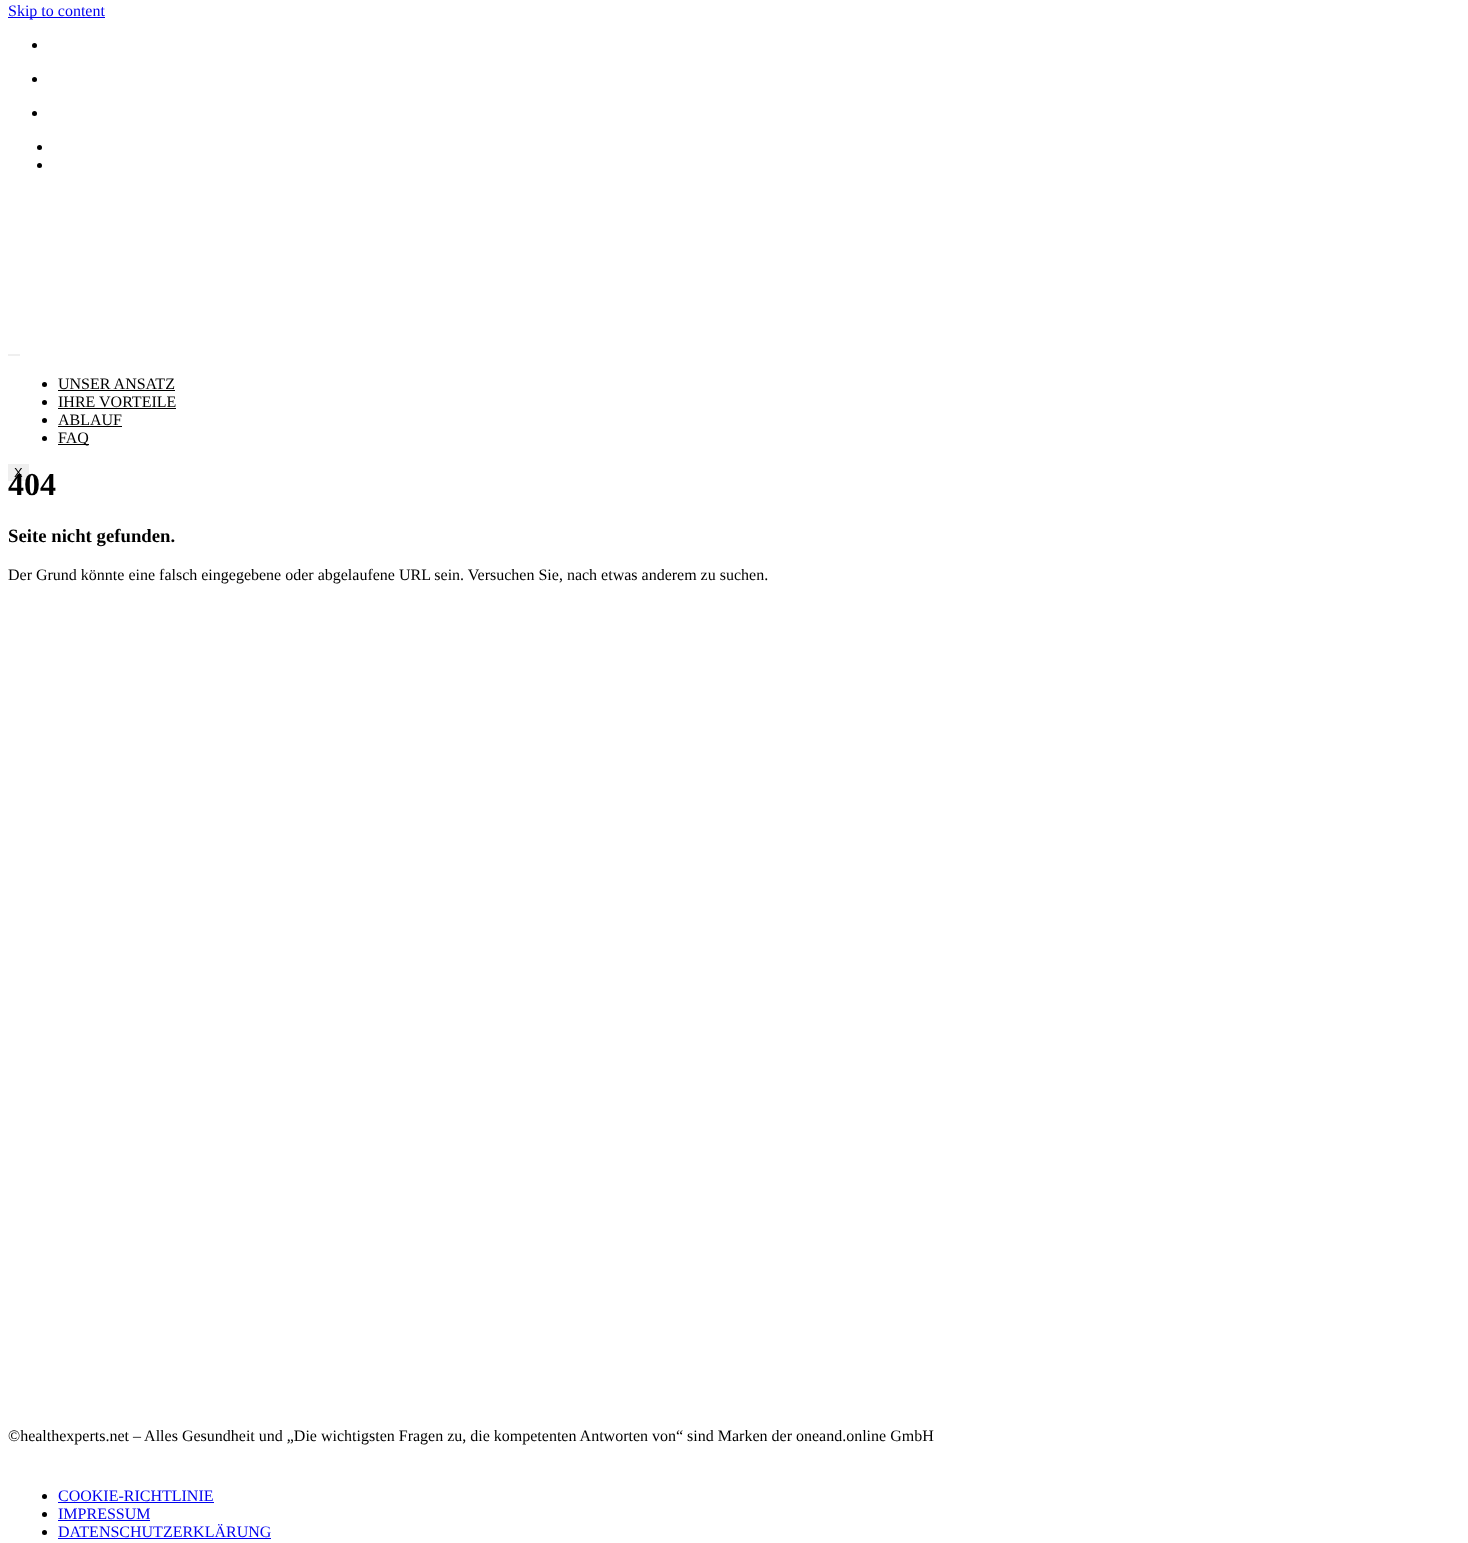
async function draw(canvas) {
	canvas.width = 1468;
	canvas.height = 1543;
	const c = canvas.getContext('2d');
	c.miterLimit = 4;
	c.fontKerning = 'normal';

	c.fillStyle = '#fff';
	c.fillRect(0, 0, 1468, 1543);
	c.fillStyle = '#00e';
	c.fillRect(8, 17, 97, 1);
	c.font = '16px Liberation Serif';
	c.fillText('Skip to content', 8, 16);
	c.fillStyle = '#000';
	c.beginPath();
	c.arc(34.5, 45.5, 2.5, 0, 2 * Math.PI);
	c.fill();
	c.beginPath();
	c.arc(34.5, 79.5, 2.5, 0, 2 * Math.PI);
	c.fill();
	c.beginPath();
	c.arc(34.5, 113.5, 2.5, 0, 2 * Math.PI);
	c.fill();
	c.beginPath();
	c.arc(39.5, 147.5, 2.5, 0, 2 * Math.PI);
	c.fill();
	c.beginPath();
	c.arc(39.5, 165.5, 2.5, 0, 2 * Math.PI);
	c.fill();
	c.fillStyle = '#efefef';
	c.fillRect(8, 354, 12, 2);
	c.fillStyle = '#000';
	c.beginPath();
	c.arc(44.5, 384.5, 2.5, 0, 2 * Math.PI);
	c.fill();
	c.fillText('UNSER ANSATZ', 58, 389);
	c.fillRect(58, 390, 117, 1);
	c.beginPath();
	c.arc(44.5, 402.5, 2.5, 0, 2 * Math.PI);
	c.fill();
	c.fillText('IHRE VORTEILE', 58, 407);
	c.fillRect(58, 408, 118, 1);
	c.beginPath();
	c.arc(44.5, 420.5, 2.5, 0, 2 * Math.PI);
	c.fill();
	c.fillText('ABLAUF', 58, 425);
	c.fillRect(58, 426, 64, 1);
	c.beginPath();
	c.arc(44.5, 438.5, 2.5, 0, 2 * Math.PI);
	c.fill();
	c.fillRect(58, 444, 31, 1);
	c.fillText('FAQ', 58, 443);
	c.fillStyle = '#efefef';
	c.fillRect(8, 464, 21, 17);
	c.font = '13px Liberation Sans';
	c.fillStyle = '#000';
	c.fillText('X', 14, 477);
	c.font = 'bold 32px Liberation Serif';
	c.fillText('404', 8, 495);
	c.font = 'bold 18.75px Liberation Serif';
	c.fillText('Seite nicht gefunden.', 8, 542);
	c.font = '16px Liberation Serif';
	c.fillText('Der Grund könnte eine falsch eingegebene oder abgelaufene URL sein. Versuchen Sie, nach etwas anderem zu suchen.', 8, 580);
	c.fillText('©healthexperts.net – Alles Gesundheit und „Die wichtigsten Fragen zu, die kompetenten Antworten von“ sind Marken der oneand.online GmbH', 8, 1441);
	c.beginPath();
	c.arc(44.5, 1496.5, 2.5, 0, 2 * Math.PI);
	c.fill();
	c.fillStyle = '#00e';
	c.fillText('COOKIE-RICHTLINIE', 58, 1501);
	c.fillRect(58, 1502, 156, 1);
	c.fillStyle = '#000';
	c.beginPath();
	c.arc(44.5, 1514.5, 2.5, 0, 2 * Math.PI);
	c.fill();
	c.fillStyle = '#00e';
	c.fillText('IMPRESSUM', 58, 1519);
	c.fillRect(58, 1520, 92, 1);
	c.fillStyle = '#000';
	c.beginPath();
	c.arc(44.5, 1532.5, 2.5, 0, 2 * Math.PI);
	c.fill();
	c.fillStyle = '#00e';
	c.fillText('DATENSCHUTZERKLÄRUNG', 58, 1537);
	c.fillRect(58, 1538, 213, 1);
}

draw(document.querySelector('canvas'));
